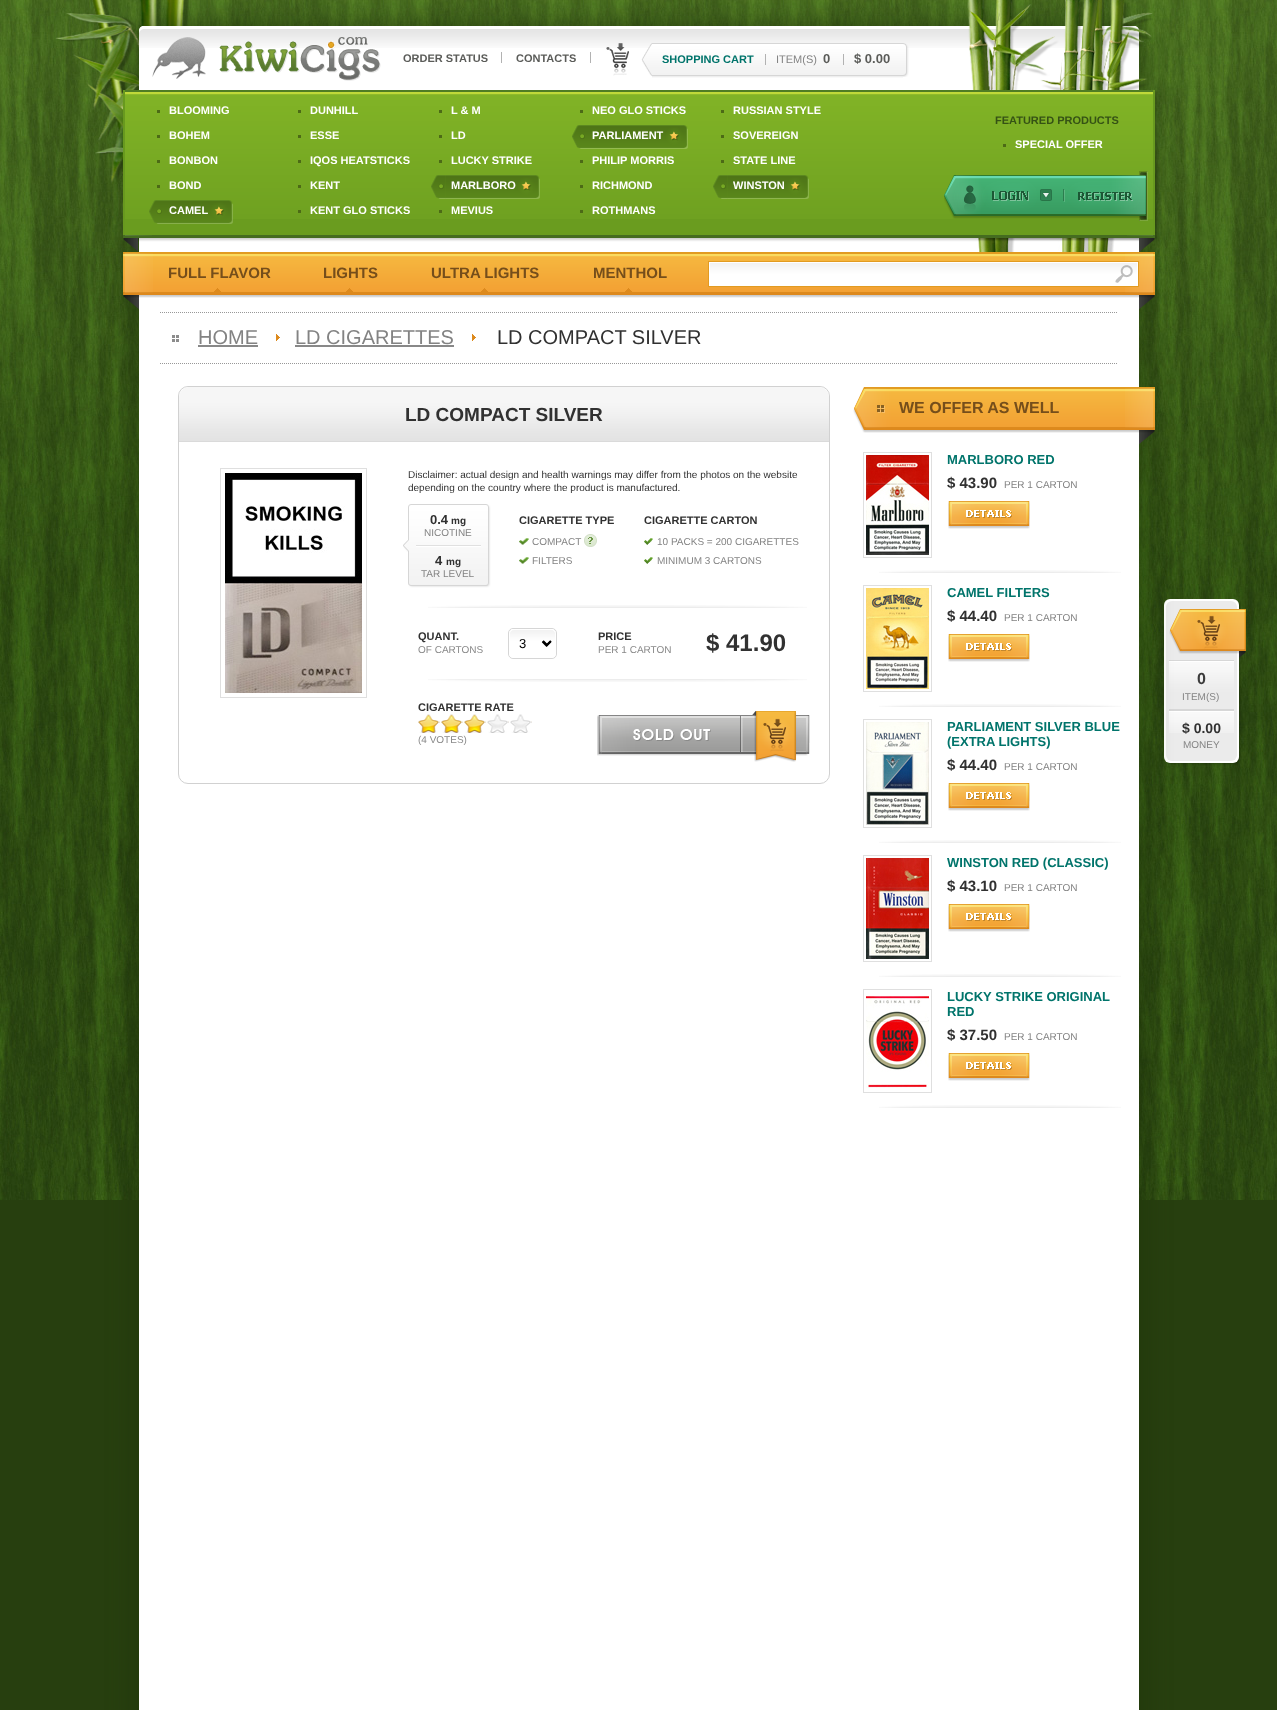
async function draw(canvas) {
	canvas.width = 1277;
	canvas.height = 1710;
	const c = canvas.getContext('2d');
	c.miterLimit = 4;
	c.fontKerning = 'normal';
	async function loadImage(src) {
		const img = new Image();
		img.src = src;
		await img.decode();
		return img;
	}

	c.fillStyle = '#273f0f';
	c.fillRect(0, 0, 1277, 1710);
	c.drawImage(await loadImage('img1.png'), 0, 0, 1277, 1200);
	c.drawImage(await loadImage('img2.png'), 55, 0, 134, 184);
	c.fillStyle = '#00000033';
	c.filter = 'blur(1px)';
	c.beginPath();
	c.roundRect(1167, 602, 73, 162, 5);
	c.fill();
	c.filter = 'none';
	c.fillStyle = '#fff';
	c.beginPath();
	c.roundRect(1164, 599, 75, 164, 6);
	c.fill();
	c.fillStyle = '#ebebeb';
	c.beginPath();
	c.roundRect(1166, 601, 71, 160, 6);
	c.fill();
	c.drawImage(await loadImage('img61.png'), 1169, 609, 77, 49);
	c.drawImage(await loadImage('img62.png'), 1169, 660, 65, 50);
	c.drawImage(await loadImage('img63.png'), 1169, 710, 65, 23);
	c.fillStyle = '#1d340abf';
	c.filter = 'blur(15px)';
	c.beginPath();
	c.rect(139, 26, 1000, 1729);
	c.fill();
	c.filter = 'none';
	c.fillStyle = '#fff';
	c.beginPath();
	c.roundRect(139, 26, 1000, 272, [5, 5, 0, 0]);
	c.fill();
	c.drawImage(await loadImage('img3.png'), 139, 26, 1000, 22);
	c.drawImage(await loadImage('img4.png'), 139, 26, 4, 7);
	c.drawImage(await loadImage('img6.png'), 1134, 29, 4, 4);
	c.drawImage(await loadImage('img5.png'), 967, 0, 186, 90);
	c.drawImage(await loadImage('img7.png'), 152, 37, 229, 44);
	c.font = 'bold 11px Liberation Sans';
	c.fillStyle = '#5b5c59';
	c.fillText('ORDER STATUS', 403, 62);
	c.fillStyle = '#b2b2b2';
	c.fillRect(501, 52, 1, 11);
	c.fillStyle = '#5b5c59';
	c.fillText('CONTACTS', 516, 62);
	c.fillStyle = '#b2b2b2';
	c.fillRect(590, 52, 1, 11);
	c.drawImage(await loadImage('img8.png'), 606, 43, 23, 33);
	c.drawImage(await loadImage('img9.png'), 641, 43, 11, 33);
	c.drawImage(await loadImage('img10.png'), 652, 43, 251, 35);
	c.fillRect(765, 54, 1, 11);
	c.fillStyle = '#00746b';
	c.fillText('SHOPPING CART', 662, 63);
	c.fillStyle = '#b2b2b2';
	c.fillRect(843, 54, 1, 11);
	c.font = '11px Liberation Sans';
	c.fillStyle = '#838383';
	c.fillText('ITEM(S)', 776, 63);
	c.font = 'bold 13px Liberation Sans';
	c.fillStyle = '#5b5c59';
	c.fillText('0', 823, 63);
	c.fillText('$ 0.00', 854, 63);
	c.drawImage(await loadImage('img11.png'), 903, 43, 6, 34);
	c.drawImage(await loadImage('img27.png'), 978, 238, 161, 14);
	c.fillStyle = '#00000033';
	c.filter = 'blur(1px)';
	c.beginPath();
	c.rect(125, 92, 1032, 148);
	c.fill();
	c.filter = 'none';
	c.fillStyle = '#6a9c1f';
	c.fillRect(123, 219, 1030, 19);
	c.drawImage(await loadImage('img12.png'), 125, 90, 1028, 129);
	c.fillStyle = '#68991f';
	c.beginPath();
	c.moveTo(1155, 90);
	c.lineTo(1155, 238);
	c.lineTo(1153, 235);
	c.lineTo(1153, 90);
	c.closePath();
	c.fill();
	c.fillStyle = '#456c20';
	c.beginPath();
	c.moveTo(1155, 238);
	c.lineTo(123, 238);
	c.lineTo(125, 235);
	c.lineTo(1153, 235);
	c.closePath();
	c.fill();
	c.fillStyle = '#68991f';
	c.beginPath();
	c.moveTo(123, 238);
	c.lineTo(123, 90);
	c.lineTo(125, 90);
	c.lineTo(125, 235);
	c.closePath();
	c.fill();
	c.fillStyle = '#4c6a16';
	c.fillRect(157, 110, 3, 3);
	c.font = 'bold 11px Liberation Sans';
	c.fillStyle = '#fff';
	c.fillText('BLOOMING', 169, 114);
	c.fillStyle = '#4c6a16';
	c.fillRect(157, 135, 3, 3);
	c.fillStyle = '#fff';
	c.fillText('BOHEM', 169, 139);
	c.fillStyle = '#4c6a16';
	c.fillRect(157, 160, 3, 3);
	c.fillStyle = '#fff';
	c.fillText('BONBON', 169, 164);
	c.fillStyle = '#4c6a16';
	c.fillRect(157, 185, 3, 3);
	c.fillStyle = '#fff';
	c.fillText('BOND', 169, 189);
	c.drawImage(await loadImage('img13.png'), 149, 200, 15, 24);
	c.drawImage(await loadImage('img14.png'), 164, 200, 69, 24);
	c.fillText('CAMEL', 169, 214);
	c.fillStyle = '#4c6a16';
	c.fillRect(298, 110, 3, 3);
	c.fillStyle = '#fff';
	c.fillText('DUNHILL', 310, 114);
	c.fillStyle = '#4c6a16';
	c.fillRect(298, 135, 3, 3);
	c.fillStyle = '#fff';
	c.fillText('ESSE', 310, 139);
	c.fillStyle = '#4c6a16';
	c.fillRect(298, 160, 3, 3);
	c.fillStyle = '#fff';
	c.fillText('IQOS HEATSTICKS', 310, 164);
	c.fillStyle = '#4c6a16';
	c.fillRect(298, 185, 3, 3);
	c.fillStyle = '#fff';
	c.fillText('KENT', 310, 189);
	c.fillStyle = '#4c6a16';
	c.fillRect(298, 210, 3, 3);
	c.fillStyle = '#fff';
	c.fillText('KENT GLO STICKS', 310, 214);
	c.fillStyle = '#4c6a16';
	c.fillRect(439, 110, 3, 3);
	c.fillStyle = '#fff';
	c.fillText('L & M', 451, 114);
	c.fillStyle = '#4c6a16';
	c.fillRect(439, 135, 3, 3);
	c.fillStyle = '#fff';
	c.fillText('LD', 451, 139);
	c.fillStyle = '#4c6a16';
	c.fillRect(439, 160, 3, 3);
	c.fillStyle = '#fff';
	c.fillText('LUCKY STRIKE', 451, 164);
	c.drawImage(await loadImage('img15.png'), 431, 175, 15, 24);
	c.drawImage(await loadImage('img16.png'), 446, 175, 94, 24);
	c.fillText('MARLBORO', 451, 189);
	c.fillStyle = '#4c6a16';
	c.fillRect(439, 210, 3, 3);
	c.fillStyle = '#fff';
	c.fillText('MEVIUS', 451, 214);
	c.fillStyle = '#4c6a16';
	c.fillRect(580, 110, 3, 3);
	c.fillStyle = '#fff';
	c.fillText('NEO GLO STICKS', 592, 114);
	c.drawImage(await loadImage('img17.png'), 572, 125, 15, 24);
	c.drawImage(await loadImage('img18.png'), 587, 125, 101, 24);
	c.fillText('PARLIAMENT', 592, 139);
	c.fillStyle = '#4c6a16';
	c.fillRect(580, 160, 3, 3);
	c.fillStyle = '#fff';
	c.fillText('PHILIP MORRIS', 592, 164);
	c.fillStyle = '#4c6a16';
	c.fillRect(580, 185, 3, 3);
	c.fillStyle = '#fff';
	c.fillText('RICHMOND', 592, 189);
	c.fillStyle = '#4c6a16';
	c.fillRect(580, 210, 3, 3);
	c.fillStyle = '#fff';
	c.fillText('ROTHMANS', 592, 214);
	c.fillStyle = '#4c6a16';
	c.fillRect(721, 110, 3, 3);
	c.fillStyle = '#fff';
	c.fillText('RUSSIAN STYLE', 733, 114);
	c.fillStyle = '#4c6a16';
	c.fillRect(721, 135, 3, 3);
	c.fillStyle = '#fff';
	c.fillText('SOVEREIGN', 733, 139);
	c.fillStyle = '#4c6a16';
	c.fillRect(721, 160, 3, 3);
	c.fillStyle = '#fff';
	c.fillText('STATE LINE', 733, 164);
	c.drawImage(await loadImage('img19.png'), 713, 175, 15, 24);
	c.drawImage(await loadImage('img20.png'), 728, 175, 81, 24);
	c.fillText('WINSTON', 733, 189);
	c.fillStyle = '#355215';
	c.fillText('FEATURED PRODUCTS', 995, 124);
	c.fillStyle = '#4c6a16';
	c.fillRect(1003, 144, 3, 3);
	c.fillStyle = '#fff';
	c.fillText('SPECIAL OFFER', 1015, 148);
	c.drawImage(await loadImage('img21.png'), 1139, 171, 9, 50);
	c.drawImage(await loadImage('img22.png'), 944, 175, 119, 44);
	c.drawImage(await loadImage('img23.png'), 1040, 189, 12, 12);
	c.drawImage(await loadImage('img24.png'), 1063, 175, 83, 44);
	c.drawImage(await loadImage('img25.png'), 123, 235, 29, 17);
	c.drawImage(await loadImage('img26.png'), 1127, 235, 28, 17);
	c.drawImage(await loadImage('img28.png'), 139, 252, 1000, 46);
	c.drawImage(await loadImage('img29.png'), 123, 252, 30, 57);
	c.drawImage(await loadImage('img30.png'), 214, 288, 7, 4);
	c.font = 'bold 15px Liberation Sans';
	c.fillStyle = '#754e1b';
	c.fillText('FULL FLAVOR', 168, 278);
	c.drawImage(await loadImage('img30.png'), 346, 288, 7, 4);
	c.fillText('LIGHTS', 323, 278);
	c.drawImage(await loadImage('img30.png'), 481, 288, 7, 4);
	c.fillText('ULTRA LIGHTS', 431, 278);
	c.drawImage(await loadImage('img30.png'), 625, 288, 7, 4);
	c.fillText('MENTHOL', 593, 278);
	c.drawImage(await loadImage('img33.png'), 1125, 252, 30, 57);
	c.strokeStyle = '#e29b21';
	c.strokeRect(708.5, 261.5, 430, 25);
	c.strokeStyle = '#fff';
	c.strokeRect(709.5, 262.5, 428, 23);
	c.drawImage(await loadImage('img31.png'), 710, 263, 403, 22);
	c.drawImage(await loadImage('img32.png'), 1113, 263, 24, 22);
	c.fillStyle = '#fff';
	c.fillRect(139, 298, 1000, 1412);
	c.drawImage(await loadImage('img34.png'), 172, 335, 7, 7);
	c.beginPath();
	c.moveTo(160, 312.5);
	c.lineTo(1118, 312.5);
	c.strokeStyle = '#989898';
	c.setLineDash([1, 1]);
	c.stroke();
	c.beginPath();
	c.moveTo(160, 363.5);
	c.lineTo(1118, 363.5);
	c.stroke();
	c.font = '20px Liberation Sans';
	c.fillStyle = '#838383';
	c.fillText('HOME', 198, 344);
	c.fillStyle = '#888';
	c.fillRect(198, 345, 60, 2);
	c.drawImage(await loadImage('img35.png'), 276, 334, 4, 7);
	c.fillStyle = '#838383';
	c.fillText('LD CIGARETTES', 295, 344);
	c.fillStyle = '#888';
	c.fillRect(295, 345, 159, 2);
	c.drawImage(await loadImage('img35.png'), 472, 334, 4, 7);
	c.fillStyle = '#313131';
	c.fillText('LD COMPACT SILVER', 497, 344);
	c.beginPath();
	c.roundRect(178.5, 386.5, 651, 397, 9.5);
	c.strokeStyle = '#d1d1d1';
	c.setLineDash([]);
	c.stroke();
	c.drawImage(await loadImage('img36.png'), 179, 387, 650, 55);
	c.font = 'bold 19px Liberation Sans';
	c.fillText('LD COMPACT SILVER', 405, 421);
	c.strokeStyle = '#dfdfdf';
	c.strokeRect(220.5, 468.5, 146, 229);
	c.drawImage(await loadImage('img37.png'), 225, 473, 137, 220);
	c.font = '10px Liberation Sans';
	c.fillText('Disclaimer: actual design and health warnings may differ from the photos on the website', 408, 478);
	c.fillText('depending on the country where the product is manufactured.', 408, 491);
	c.drawImage(await loadImage('img38.png'), 428, 605, 379, 3);
	c.fillStyle = '#00000033';
	c.filter = 'blur(1px)';
	c.beginPath();
	c.roundRect(410, 506, 79, 80, 2);
	c.fill();
	c.filter = 'none';
	c.drawImage(await loadImage('img39.png'), 408, 505, 81, 80);
	c.beginPath();
	c.roundRect(408.5, 504.5, 80, 81, 2.5);
	c.strokeStyle = '#d6d6d6';
	c.stroke();
	c.drawImage(await loadImage('img40.png'), 416, 545, 65, 2);
	c.font = 'bold 13px Liberation Sans';
	c.fillStyle = '#313131';
	c.fillText('0.4', 430, 524);
	c.font = 'bold 10px Liberation Sans';
	c.fillText('mg', 451, 524);
	c.font = '10px Liberation Sans';
	c.fillStyle = '#838383';
	c.fillText('NICOTINE', 424, 536);
	c.drawImage(await loadImage('img41.png'), 403, 540, 6, 12);
	c.font = 'bold 13px Liberation Sans';
	c.fillStyle = '#313131';
	c.fillText('4', 435, 565);
	c.font = 'bold 10px Liberation Sans';
	c.fillText('mg', 446, 565);
	c.font = '10px Liberation Sans';
	c.fillStyle = '#838383';
	c.fillText('TAR LEVEL', 421, 577);
	c.font = 'bold 11px Liberation Sans';
	c.fillStyle = '#313131';
	c.fillText('CIGARETTE TYPE', 519, 524);
	c.drawImage(await loadImage('img42.png'), 519, 538, 10, 7);
	c.font = '10px Liberation Sans';
	c.fillStyle = '#838383';
	c.fillText('COMPACT', 532, 545);
	c.drawImage(await loadImage('img43.png'), 584, 534, 13, 13);
	c.drawImage(await loadImage('img42.png'), 519, 557, 10, 7);
	c.fillText('FILTERS', 532, 564);
	c.font = 'bold 11px Liberation Sans';
	c.fillStyle = '#313131';
	c.fillText('CIGARETTE CARTON', 644, 524);
	c.drawImage(await loadImage('img44.png'), 644, 538, 9, 7);
	c.font = '10px Liberation Sans';
	c.fillStyle = '#838383';
	c.fillText('10 PACKS = 200 CIGARETTES', 657, 545);
	c.drawImage(await loadImage('img44.png'), 644, 557, 9, 7);
	c.fillText('MINIMUM 3 CARTONS', 657, 564);
	c.font = 'bold 11px Liberation Sans';
	c.fillStyle = '#313131';
	c.fillText('QUANT.', 418, 640);
	c.font = '10px Liberation Sans';
	c.fillStyle = '#898989';
	c.fillText('OF CARTONS', 418, 653);
	c.beginPath();
	c.roundRect(508.5, 628.5, 48, 30, 4.5);
	c.stroke();
	c.fillStyle = '#fff';
	c.beginPath();
	c.roundRect(509, 629, 47, 29, 5);
	c.fill();
	c.drawImage(await loadImage('img45.png'), 509, 630, 47, 17);
	c.beginPath();
	c.roundRect(509.5, 629.5, 46, 28, 4.5);
	c.strokeStyle = '#fff';
	c.stroke();
	c.beginPath();
	c.moveTo(542.5, 641.5);
	c.lineTo(546.5, 645.5);
	c.lineTo(550.5, 641.5);
	c.strokeStyle = '#000';
	c.lineWidth = 2;
	c.stroke();
	c.font = '13px Liberation Sans';
	c.fillStyle = '#000';
	c.fillText('3', 519, 648);
	c.font = 'bold 11px Liberation Sans';
	c.fillStyle = '#313131';
	c.fillText('PRICE', 598, 640);
	c.font = '10px Liberation Sans';
	c.fillStyle = '#898989';
	c.fillText('PER 1 CARTON', 598, 653);
	c.font = 'bold 24px Liberation Sans';
	c.fillStyle = '#313131';
	c.fillText('$ 41.90', 706, 651);
	c.drawImage(await loadImage('img46.png'), 428, 679, 379, 3);
	c.font = 'bold 11px Liberation Sans';
	c.fillText('CIGARETTE RATE', 418, 711);
	c.drawImage(await loadImage('img47.png'), 418, 714, 22, 19);
	c.drawImage(await loadImage('img47.png'), 441, 714, 22, 19);
	c.drawImage(await loadImage('img47.png'), 464, 714, 22, 19);
	c.drawImage(await loadImage('img48.png'), 487, 714, 22, 19);
	c.drawImage(await loadImage('img49.png'), 510, 714, 22, 19);
	c.font = '10px Liberation Sans';
	c.fillStyle = '#898989';
	c.fillText('(4 VOTES)', 418, 743);
	c.drawImage(await loadImage('img50.png'), 597, 711, 213, 51);
	c.drawImage(await loadImage('img51.png'), 853, 387, 41, 46);
	c.drawImage(await loadImage('img52.png'), 894, 387, 245, 46);
	c.font = 'bold 16px Liberation Sans';
	c.fillStyle = '#754e1b';
	c.fillText('WE OFFER AS WELL', 899, 413);
	c.drawImage(await loadImage('img53.png'), 1125, 387, 30, 57);
	c.drawImage(await loadImage('img54.png'), 879, 570, 242, 3);
	c.strokeStyle = '#dfdfdf';
	c.lineWidth = 1;
	c.strokeRect(863.5, 452.5, 68, 105);
	c.drawImage(await loadImage('img55.png'), 866, 455, 63, 100);
	c.font = 'bold 13px Liberation Sans';
	c.fillStyle = '#00746b';
	c.fillText('MARLBORO RED', 947, 464);
	c.font = 'bold 15px Liberation Sans';
	c.fillStyle = '#313131';
	c.fillText('$ 43.90', 947, 488);
	c.font = '10px Liberation Sans';
	c.fillStyle = '#838383';
	c.fillText('PER 1 CARTON', 1004, 488);
	c.drawImage(await loadImage('img56.png'), 948, 501, 82, 28);
	c.drawImage(await loadImage('img54.png'), 879, 704, 242, 3);
	c.strokeRect(863.5, 585.5, 68, 106);
	c.drawImage(await loadImage('img57.png'), 866, 588, 63, 101);
	c.font = 'bold 13px Liberation Sans';
	c.fillStyle = '#00746b';
	c.fillText('CAMEL FILTERS', 947, 597);
	c.font = 'bold 15px Liberation Sans';
	c.fillStyle = '#313131';
	c.fillText('$ 44.40', 947, 621);
	c.font = '10px Liberation Sans';
	c.fillStyle = '#838383';
	c.fillText('PER 1 CARTON', 1004, 621);
	c.drawImage(await loadImage('img56.png'), 948, 634, 82, 28);
	c.drawImage(await loadImage('img54.png'), 879, 840, 242, 3);
	c.strokeRect(863.5, 719.5, 68, 108);
	c.drawImage(await loadImage('img58.png'), 866, 722, 63, 103);
	c.font = 'bold 13px Liberation Sans';
	c.fillStyle = '#00746b';
	c.fillText('PARLIAMENT SILVER BLUE', 947, 731);
	c.fillText('(EXTRA LIGHTS)', 947, 746);
	c.font = 'bold 15px Liberation Sans';
	c.fillStyle = '#313131';
	c.fillText('$ 44.40', 947, 770);
	c.font = '10px Liberation Sans';
	c.fillStyle = '#838383';
	c.fillText('PER 1 CARTON', 1004, 770);
	c.drawImage(await loadImage('img56.png'), 948, 783, 82, 28);
	c.drawImage(await loadImage('img54.png'), 879, 974, 242, 3);
	c.strokeRect(863.5, 855.5, 68, 106);
	c.drawImage(await loadImage('img59.png'), 866, 858, 63, 101);
	c.font = 'bold 13px Liberation Sans';
	c.fillStyle = '#00746b';
	c.fillText('WINSTON RED (CLASSIC)', 947, 867);
	c.font = 'bold 15px Liberation Sans';
	c.fillStyle = '#313131';
	c.fillText('$ 43.10', 947, 891);
	c.font = '10px Liberation Sans';
	c.fillStyle = '#838383';
	c.fillText('PER 1 CARTON', 1004, 891);
	c.drawImage(await loadImage('img56.png'), 948, 904, 82, 28);
	c.drawImage(await loadImage('img54.png'), 879, 1105, 242, 3);
	c.strokeRect(863.5, 989.5, 68, 103);
	c.drawImage(await loadImage('img60.png'), 866, 996, 63, 92);
	c.font = 'bold 13px Liberation Sans';
	c.fillStyle = '#00746b';
	c.fillText('LUCKY STRIKE ORIGINAL', 947, 1001);
	c.fillText('RED', 947, 1016);
	c.font = 'bold 15px Liberation Sans';
	c.fillStyle = '#313131';
	c.fillText('$ 37.50', 947, 1040);
	c.font = '10px Liberation Sans';
	c.fillStyle = '#838383';
	c.fillText('PER 1 CARTON', 1004, 1040);
	c.drawImage(await loadImage('img56.png'), 948, 1053, 82, 28);
	c.font = 'bold 16px Liberation Sans';
	c.fillStyle = '#3c3c3c';
	c.fillText('0', 1197, 684);
	c.font = '10px Liberation Sans';
	c.fillStyle = '#838383';
	c.fillText('ITEM(S)', 1182, 700);
	c.font = 'bold 14px Liberation Sans';
	c.fillStyle = '#313131';
	c.fillText('$ 0.00', 1182, 733);
	c.font = '10px Liberation Sans';
	c.fillStyle = '#838383';
	c.fillText('MONEY', 1183, 748);
}

draw(document.querySelector('canvas'));
